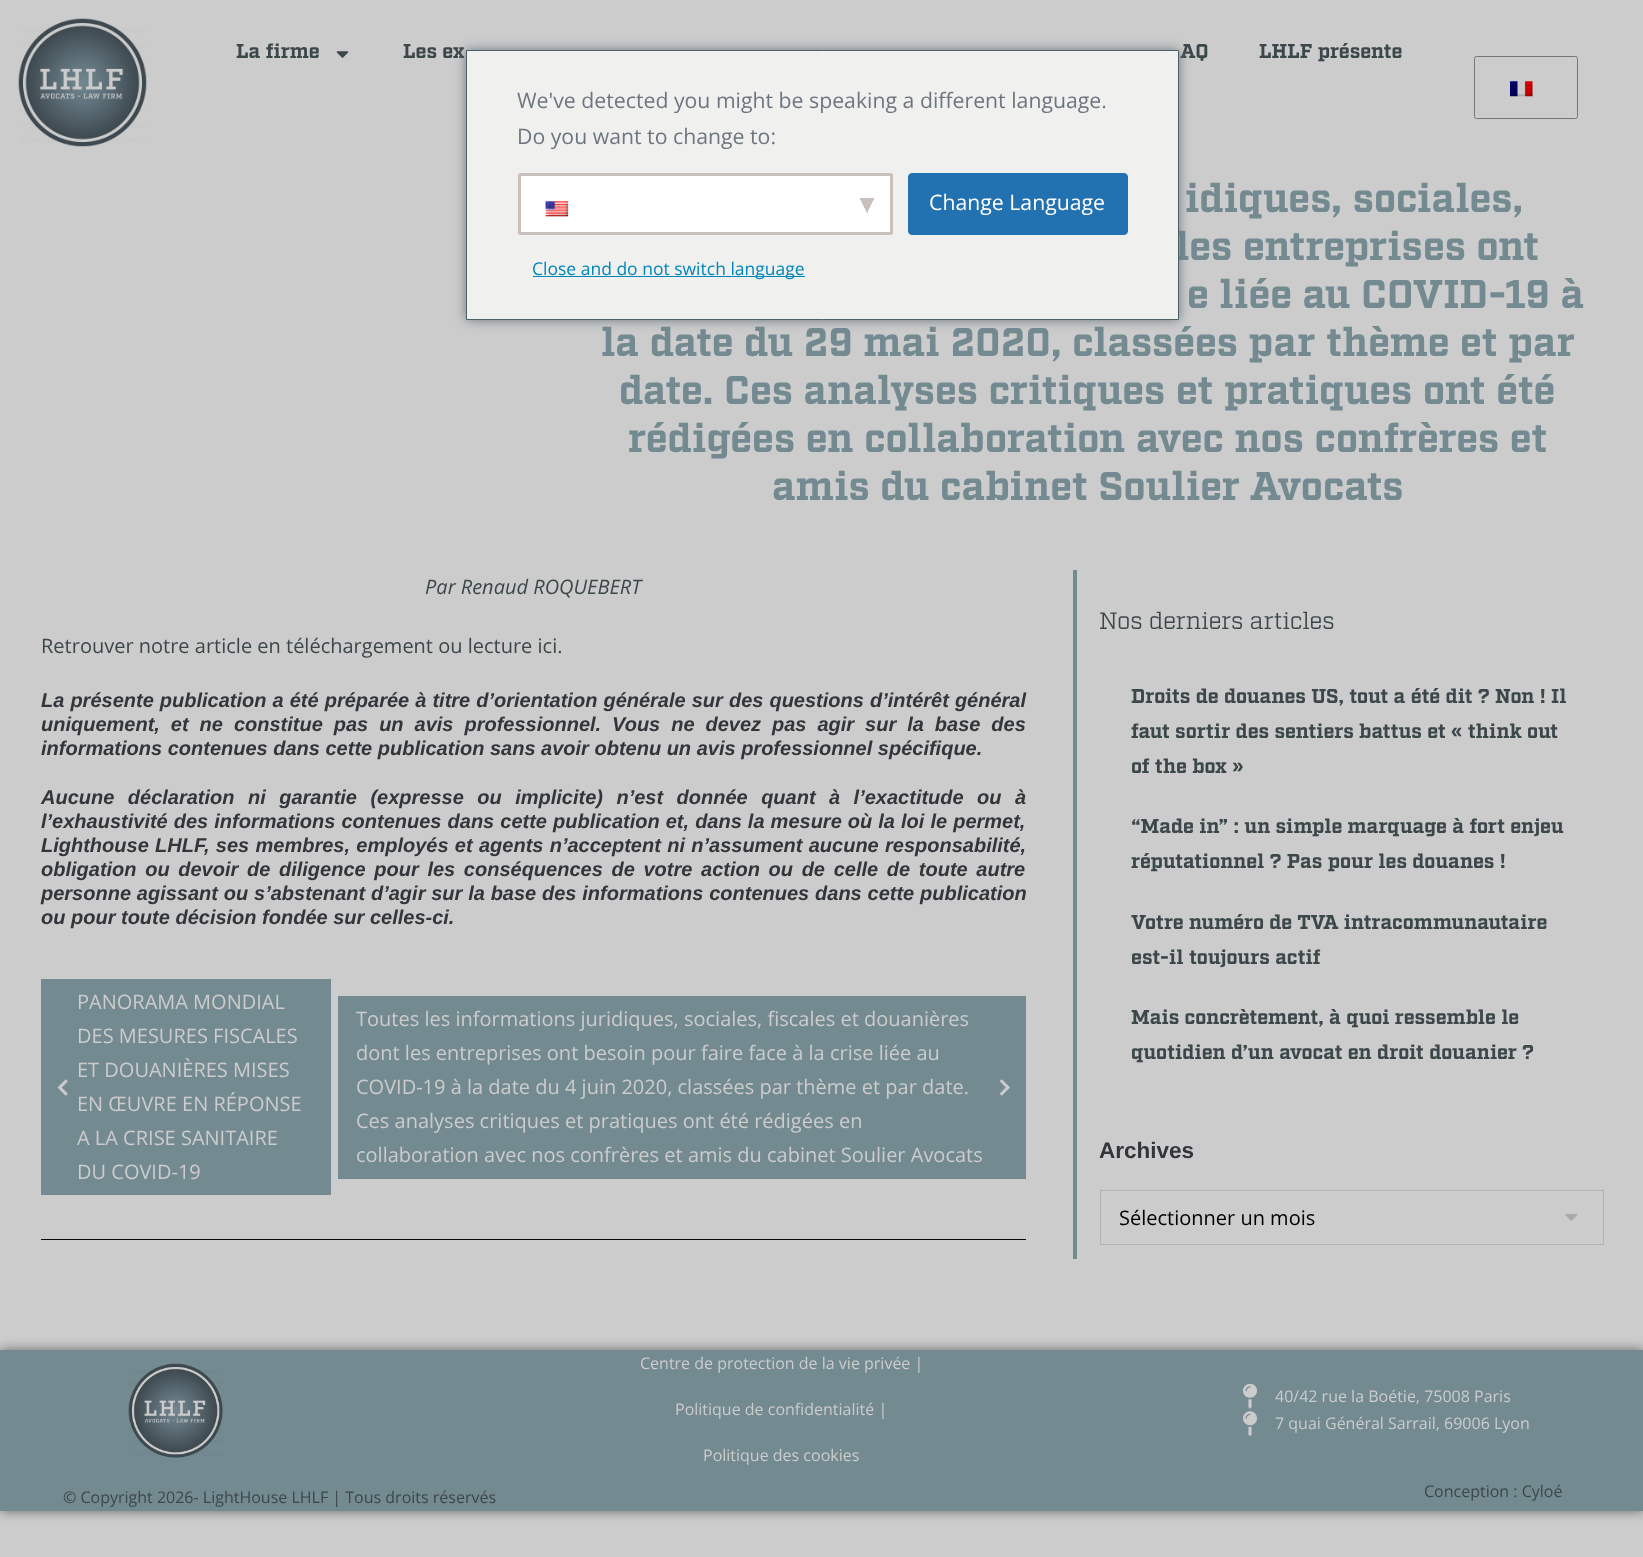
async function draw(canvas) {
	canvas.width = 1643;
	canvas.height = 1557;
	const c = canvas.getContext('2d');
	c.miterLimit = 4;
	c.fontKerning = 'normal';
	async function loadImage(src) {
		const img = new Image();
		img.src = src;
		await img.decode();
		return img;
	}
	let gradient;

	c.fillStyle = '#ccc';
	c.fillRect(0, 0, 1643, 1557);
	c.drawImage(await loadImage('img1.png'), 18, 18, 129, 129);
	c.font = 'bold 20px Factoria';
	c.fillStyle = '#3c474a';
	c.fillText('La firme', 236, 58);
	c.drawImage(await loadImage('img2.png'), 336, 51, 13, 7);
	for (const [text, x, y] of [
		['Les ex', 403, 58],
		['AQ', 1180, 58],
		['LHLF présente', 1259, 58],
	]) {
		c.fillText(text, x, y);
	}
	c.beginPath();
	c.roundRect(1474.5, 56.5, 103, 62, 2);
	c.strokeStyle = '#767676';
	c.stroke();
	c.drawImage(await loadImage('img3.png'), 1510, 81, 23, 16);
	c.font = 'bold 40px Factoria';
	c.fillStyle = '#738a91';
	for (const [text, x, y] of [
		['idiques, sociales,', 1185, 212],
		['les entreprises ont', 1175, 260],
		['e liée au COVID-19 à', 1187, 308],
		['la date du 29 mai 2020, classées par thème et par', 601, 356],
		['date. Ces analyses critiques et pratiques ont été', 619, 404],
		['rédigées en collaboration avec nos confrères et', 628, 452],
		['amis du cabinet Soulier Avocats', 772, 500],
	]) {
		c.fillText(text, x, y);
	}
	c.font = 'italic 20px Open Sans';
	c.fillStyle = '#3c474a';
	c.fillText('Par Renaud ROQUEBERT', 425, 594);
	c.font = '20px Open Sans';
	c.fillText('Retrouver notre article en téléchargement ou lecture ici.', 41, 653);
	c.wordSpacing = '0.5px';
	c.font = 'italic bold 20px Liberation Sans';
	c.fillStyle = '#32363a';
	c.fillText('La présente publication a été préparée à titre d’orientation générale sur des questions d’intérêt général', 41, 707);
	c.wordSpacing = '5.4px';
	c.fillText('uniquement, et ne constitue pas un avis professionnel. Vous ne devez pas agir sur la base des', 41, 731);
	c.wordSpacing = '0px';
	c.fillText('informations contenues dans cette publication sans avoir obtenu un avis professionnel spécifique.', 41, 755);
	c.wordSpacing = '7.9px';
	c.fillText('Aucune déclaration ni garantie (expresse ou implicite) n’est donnée quant à l’exactitude ou à', 41, 804);
	c.wordSpacing = '0.5px';
	c.fillText('l’exhaustivité des informations contenues dans cette publication et, dans la mesure où la loi le permet,', 41, 828);
	c.wordSpacing = '0.75px';
	c.fillText('Lighthouse LHLF, ses membres, employés et agents n’acceptent ni n’assument aucune responsabilité,', 41, 852);
	c.wordSpacing = '3.1px';
	c.fillText('obligation ou devoir de diligence pour les conséquences de votre action ou de celle de toute autre', 41, 876);
	c.wordSpacing = '0.25px';
	c.fillText('personne agissant ou s’abstenant d’agir sur la base des informations contenues dans cette publication', 41, 900);
	c.wordSpacing = '0px';
	c.fillText('ou pour toute décision fondée sur celles-ci.', 41, 924);
	c.fillStyle = '#738a91';
	c.fillRect(41, 979, 290, 216);
	c.font = '20px Open Sans';
	c.fillStyle = '#ccc';
	for (const [text, x, y] of [
		['PANORAMA MONDIAL', 77, 1009],
		['DES MESURES FISCALES', 77, 1043],
		['ET DOUANIÈRES MISES', 77, 1077],
	]) {
		c.fillText(text, x, y);
	}
	c.drawImage(await loadImage('img4.png'), 57, 1079, 11, 17);
	for (const [text, x, y] of [
		['EN ŒUVRE EN RÉPONSE', 77, 1111],
		['A LA CRISE SANITAIRE', 77, 1145],
		['DU COVID-19', 77, 1179],
	]) {
		c.fillText(text, x, y);
	}
	c.fillStyle = '#738a91';
	c.fillRect(338, 996, 688, 183);
	c.fillStyle = '#ccc';
	for (const [text, x, y] of [
		['Toutes les informations juridiques, sociales, fiscales et douanières', 356, 1026],
		['dont les entreprises ont besoin pour faire face à la crise liée au', 356, 1060],
		['COVID-19 à la date du 4 juin 2020, classées par thème et par date.', 356, 1094],
	]) {
		c.fillText(text, x, y);
	}
	c.drawImage(await loadImage('img5.png'), 999, 1079, 11, 17);
	c.fillText('Ces analyses critiques et pratiques ont été rédigées en', 356, 1128);
	c.fillText('collaboration avec nos confrères et amis du cabinet Soulier Avocats', 356, 1162);
	c.fillStyle = '#0a0a0b';
	c.fillRect(41, 1239, 985, 1);
	c.fillStyle = '#738a91';
	c.fillRect(1073, 570, 4, 689);
	c.font = '23.75px Factoria';
	c.fillStyle = '#3c474a';
	c.fillText('Nos derniers articles', 1099, 629);
	c.font = 'bold 20px Factoria';
	for (const [text, x, y] of [
		['Droits de douanes US, tout a été dit ? Non ! Il', 1131, 703],
		['faut sortir des sentiers battus et « think out', 1131, 738],
		['of the box »', 1131, 773],
		['“Made in” : un simple marquage à fort enjeu', 1131, 833],
		['réputationnel ? Pas pour les douanes !', 1131, 868],
		['Votre numéro de TVA intracommunautaire', 1131, 929],
		['est-il toujours actif', 1131, 964],
		['Mais concrètement, à quoi ressemble le', 1131, 1024],
		['quotidien d’un avocat en droit douanier ?', 1131, 1059],
	]) {
		c.fillText(text, x, y);
	}
	c.font = 'bold 22.5px Liberation Sans';
	c.fillStyle = '#32363a';
	c.fillText('Archives', 1099, 1158);
	c.drawImage(await loadImage('img6.png'), 1565, 1213, 13, 8);
	c.strokeStyle = '#b2b2b7';
	c.strokeRect(1100.5, 1190.5, 503, 54);
	c.font = '20px Open Sans';
	c.fillStyle = '#000';
	c.fillText('Sélectionner un mois', 1119, 1225);
	c.fillStyle = '#00000080';
	c.filter = 'blur(6px)';
	c.beginPath();
	c.rect(0, 1350, 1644, 161);
	c.fill();
	c.filter = 'none';
	c.fillStyle = '#738a91';
	c.fillRect(0, 1350, 1643, 161);
	c.drawImage(await loadImage('img7.png'), 128, 1363, 95, 95);
	c.font = '16px Open Sans';
	c.fillStyle = '#ccc';
	for (const [text, x, y] of [
		['Centre de protection de la vie privée |', 640, 1369],
		['Politique de confidentialité |', 675, 1415],
		['Politique des cookies', 703, 1461],
	]) {
		c.fillText(text, x, y);
	}
	c.drawImage(await loadImage('img8.png'), 1243, 1384, 14, 25);
	c.fillText('40/42 rue la Boétie, 75008 Paris', 1275, 1402);
	c.drawImage(await loadImage('img9.png'), 1243, 1411, 14, 25);
	c.fillText('7 quai Général Sarrail, 69006 Lyon', 1275, 1429);
	c.fillStyle = '#3c474a';
	c.fillText('© Copyright 2026- LightHouse LHLF | Tous droits réservés', 63, 1503);
	c.fillText('Conception : Cyloé', 1424, 1497);
	c.fillStyle = '#6c7781';
	c.filter = 'blur(6px)';
	c.beginPath();
	c.rect(466, 50, 713, 270);
	c.fill();
	c.filter = 'none';
	c.fillStyle = '#f0f0ee';
	c.beginPath();
	c.rect(466.5, 50.5, 712, 269);
	c.fill();
	c.strokeStyle = '#4c6066';
	c.stroke();
	c.font = '21.25px Open Sans';
	c.fillStyle = '#6d7680';
	c.fillText('We\'ve detected you might be speaking a different language.', 517, 108);
	c.fillText('Do you want to change to:', 517, 144);
	c.fillStyle = '#fff';
	c.beginPath();
	c.roundRect(518, 173, 375, 62, 2.5);
	c.fill();
	gradient = c.createLinearGradient(865, 202, 877, 208);
	gradient.addColorStop(0.5, '#c9c0bb');
	gradient.addColorStop(0.5, '#fff');
	c.fillStyle = gradient;
	c.fillRect(868, 198, 6, 15);
	gradient = c.createLinearGradient(857, 208, 869, 202);
	gradient.addColorStop(0.5, '#fff');
	gradient.addColorStop(0.5, '#c9c0bb');
	c.fillStyle = gradient;
	c.fillRect(860, 198, 8, 15);
	c.beginPath();
	c.roundRect(519.5, 174.5, 372, 59, 1);
	c.strokeStyle = '#c9c0bb';
	c.lineWidth = 3;
	c.stroke();
	c.drawImage(await loadImage('img10.png'), 545, 201, 24, 16);
	c.fillStyle = '#2271b1';
	c.beginPath();
	c.roundRect(908.5, 173.5, 219, 61, 3.5);
	c.fill();
	c.strokeStyle = '#2271b1';
	c.lineWidth = 1;
	c.stroke();
	c.fillStyle = '#fff';
	c.fillText('Change Language', 929, 210);
	c.fillStyle = '#0085ba';
	c.fillRect(533, 276, 272, 1);
	c.font = '17.5px Open Sans';
	c.fillText('Close and do not switch language', 532, 275);
}

draw(document.querySelector('canvas'));
